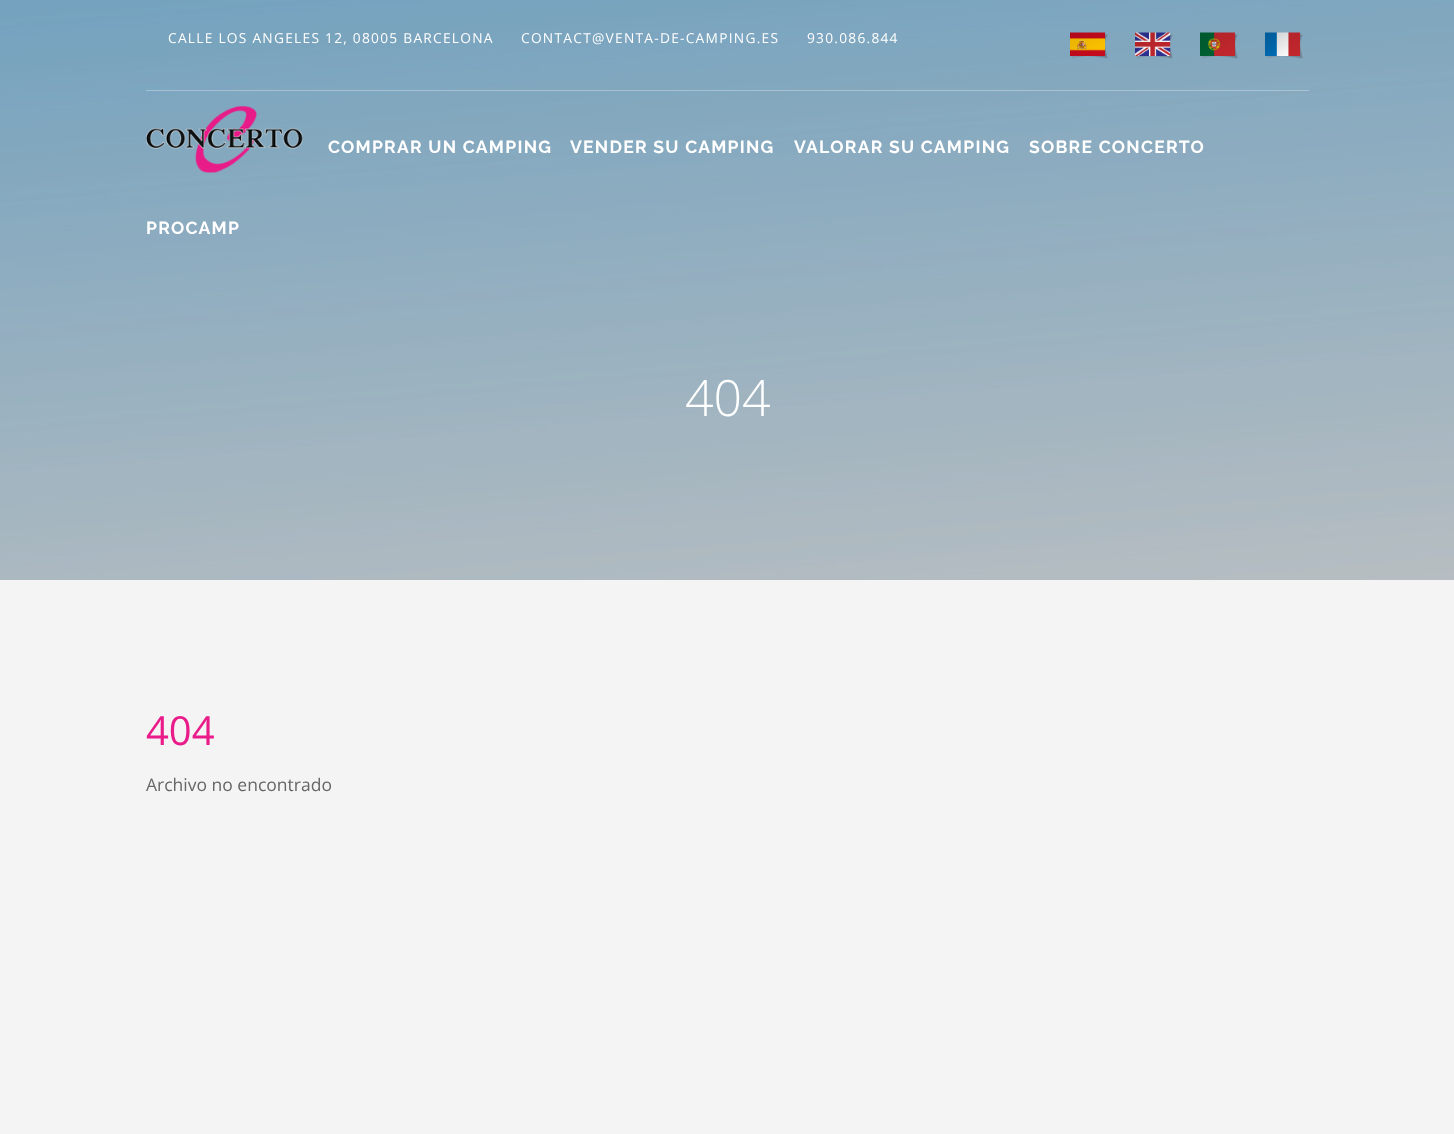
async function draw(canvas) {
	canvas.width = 1454;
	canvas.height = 1134;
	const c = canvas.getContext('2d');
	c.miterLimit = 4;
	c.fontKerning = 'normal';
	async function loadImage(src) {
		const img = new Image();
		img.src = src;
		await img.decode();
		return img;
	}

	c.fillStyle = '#fff';
	c.fillRect(0, 0, 1454, 1134);
	c.drawImage(await loadImage('img6.png'), 0, 0, 1454, 580);
	c.fillStyle = '#ffffff4d';
	c.fillRect(146, 90, 1163, 1);
	c.letterSpacing = '1.25px';
	c.font = '13.75px Open Sans';
	c.fillStyle = '#fff';
	for (const [text, x, y] of [
		['CALLE LOS ANGELES 12, 08005 BARCELONA', 168, 43],
		['CONTACT@VENTA-DE-CAMPING.ES', 521, 43],
		['930.086.844', 807, 43],
	]) {
		c.fillText(text, x, y);
	}
	c.drawImage(await loadImage('img1.png'), 1070, 32, 38, 27);
	c.drawImage(await loadImage('img2.png'), 1135, 32, 38, 27);
	c.drawImage(await loadImage('img3.png'), 1200, 32, 38, 27);
	c.drawImage(await loadImage('img4.png'), 1265, 32, 38, 27);
	c.drawImage(await loadImage('img5.png'), 146, 106, 157, 67);
	c.font = '100 17.5px Raleway';
	for (const [text, x, y] of [
		['COMPRAR UN CAMPING', 328, 153],
		['VENDER SU CAMPING', 570, 153],
		['VALORAR SU CAMPING', 794, 153],
		['SOBRE CONCERTO', 1029, 153],
		['PROCAMP', 146, 234],
	]) {
		c.fillText(text, x, y);
	}
	c.letterSpacing = '0px';
	c.font = '300 50px Open Sans';
	c.fillText('404', 685, 416);
	c.fillStyle = '#f4f4f4';
	c.fillRect(0, 580, 1454, 554);
	c.font = '40px Open Sans';
	c.fillStyle = '#e91c8a';
	c.fillText('404', 146, 745);
	c.font = '17.5px Open Sans';
	c.fillStyle = '#666';
	c.fillText('Archivo no encontrado', 146, 791);
}

draw(document.querySelector('canvas'));
